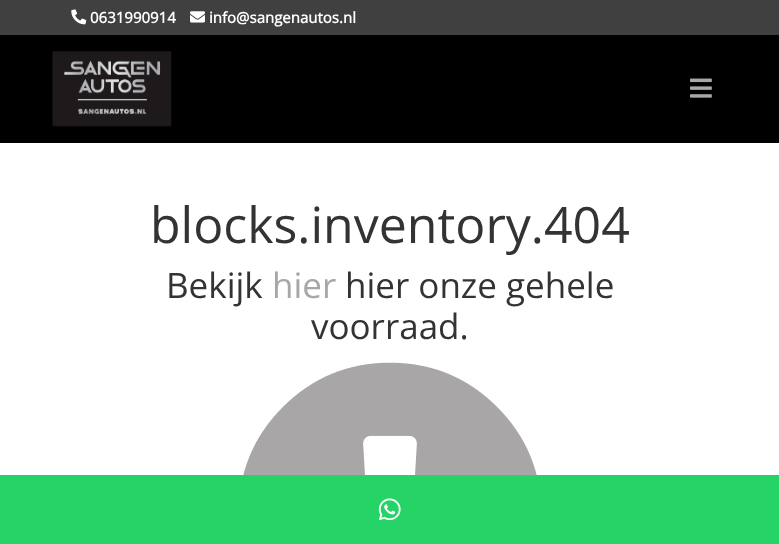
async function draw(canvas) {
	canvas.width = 779;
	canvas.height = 544;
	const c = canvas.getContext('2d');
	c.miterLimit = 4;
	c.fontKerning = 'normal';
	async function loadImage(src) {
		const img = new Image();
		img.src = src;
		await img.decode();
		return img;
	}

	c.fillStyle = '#fff';
	c.fillRect(0, 0, 779, 544);
	c.fillStyle = '#404040';
	c.fillRect(0, 0, 779, 35);
	c.drawImage(await loadImage('img1.png'), 71, 9, 16, 16);
	c.font = 'bold 15px Open Sans';
	c.fillStyle = '#fff';
	c.fillText('0631990914', 90, 23);
	c.drawImage(await loadImage('img2.png'), 190, 11, 15, 12);
	c.fillText('info@sangenautos.nl', 209, 23);
	c.fillStyle = '#000';
	c.fillRect(0, 35, 779, 108);
	c.drawImage(await loadImage('img3.png'), 52, 51, 120, 76);
	c.drawImage(await loadImage('img4.png'), 690, 78, 22, 20);
	c.font = '50px Open Sans';
	c.fillStyle = '#333';
	c.fillText('blocks.inventory.404', 150, 243);
	c.font = '35px Open Sans';
	c.fillText('Bekijk', 166, 298);
	c.fillStyle = '#a8a6a7';
	c.fillText('hier', 272, 298);
	c.fillStyle = '#333';
	c.fillText('hier onze gehele', 345, 298);
	c.fillText('voorraad.', 311, 339);
	c.drawImage(await loadImage('img5.png'), 243, 362, 294, 113);
	c.fillStyle = '#25d366';
	c.fillRect(0, 475, 779, 69);
	c.drawImage(await loadImage('img6.png'), 378, 498, 23, 23);
}

draw(document.querySelector('canvas'));
